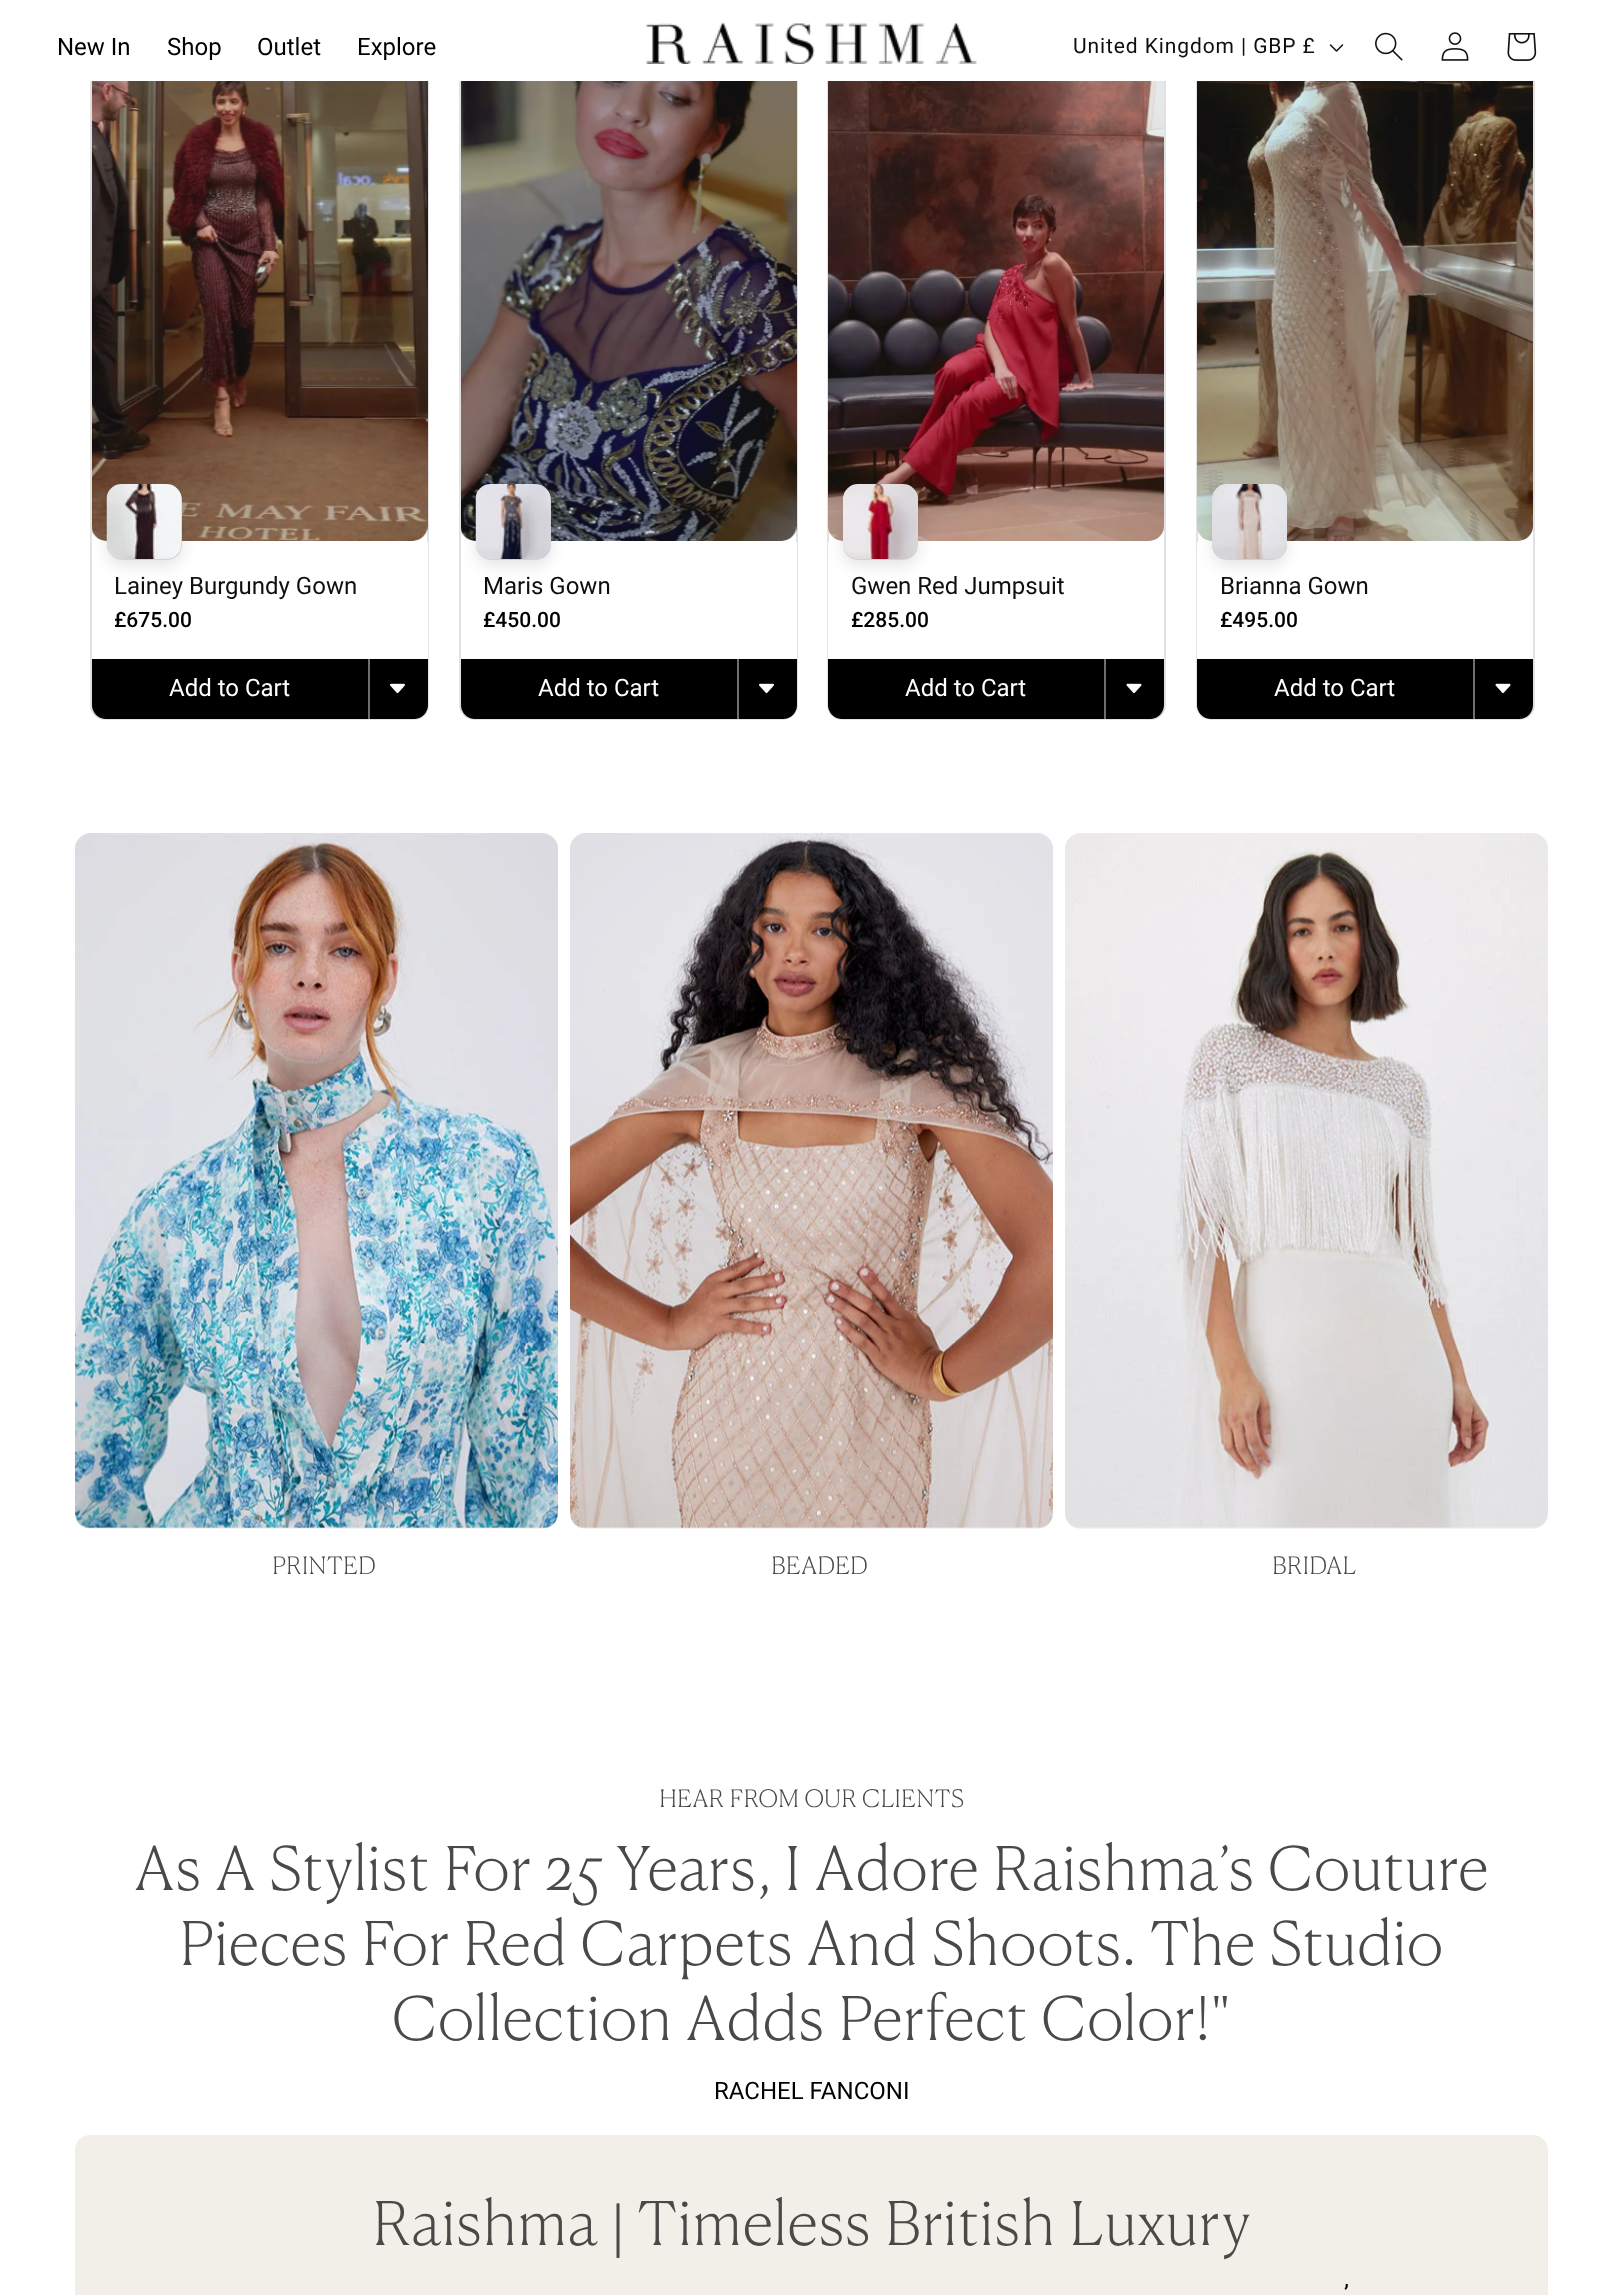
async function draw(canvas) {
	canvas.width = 1622;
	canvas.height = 2295;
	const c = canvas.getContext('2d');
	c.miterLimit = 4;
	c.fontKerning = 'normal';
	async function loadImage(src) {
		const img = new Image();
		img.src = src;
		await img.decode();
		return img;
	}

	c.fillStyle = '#fff';
	c.fillRect(0, 0, 1622, 2295);
	c.beginPath();
	c.roundRect(91, -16, 337, 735, 14);
	c.strokeStyle = '#e2e2e2';
	c.lineWidth = 2;
	c.stroke();
	c.beginPath();
	c.roundRect(460, -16, 337, 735, 14);
	c.stroke();
	c.beginPath();
	c.roundRect(828, -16, 337, 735, 14);
	c.stroke();
	c.beginPath();
	c.roundRect(1197, -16, 337, 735, 14);
	c.stroke();
	c.fillRect(90, 0, 1445, 81);
	c.font = '24px Roboto';
	c.fillStyle = '#000';
	for (const [text, x, y] of [
		['New In', 57, 55],
		['Shop', 167, 55],
		['Outlet', 257, 55],
		['Explore', 357, 55],
	]) {
		c.fillText(text, x, y);
	}
	c.drawImage(await loadImage('img1.png'), 646, 23, 331, 41);
	c.letterSpacing = '0.9px';
	c.font = '21px Roboto';
	c.fillStyle = '#0f0f0f';
	c.fillText('United Kingdom | GBP £', 1073, 53);
	c.drawImage(await loadImage('img2.png'), 1329, 44, 15, 8);
	c.drawImage(await loadImage('img3.png'), 1375, 32, 28, 29);
	c.drawImage(await loadImage('img4.png'), 1441, 32, 28, 29);
	c.drawImage(await loadImage('img5.png'), 1507, 33, 30, 28);
	c.drawImage(await loadImage('img6.png'), 92, 81, 336, 460);
	c.fillStyle = '#fff';
	c.fillRect(427, 542, 1, 117);
	c.fillStyle = '#0000001a';
	c.filter = 'blur(7.5px)';
	c.beginPath();
	c.roundRect(107, 491, 75, 75, 15);
	c.fill();
	c.filter = 'none';
	c.fillStyle = '#d2d2d2';
	c.beginPath();
	c.roundRect(107, 485, 75, 75, 15);
	c.fill();
	c.drawImage(await loadImage('img7.png'), 106, 484, 76, 75);
	c.letterSpacing = '0px';
	c.font = '24px Roboto';
	c.fillStyle = '#0f0f0f';
	c.fillText('Lainey Burgundy Gown', 114, 594);
	c.font = '500 21px Roboto';
	c.fillStyle = '#000';
	c.fillText('£675.00', 114, 627);
	c.beginPath();
	c.roundRect(92, 659, 336, 60, [0, 0, 14, 14]);
	c.fill();
	c.font = '24px Roboto';
	c.fillStyle = '#fff';
	c.fillText('Add to Cart', 169, 696);
	c.fillStyle = '#6e6e6e';
	c.fillRect(368, 659, 2, 60);
	c.drawImage(await loadImage('img8.png'), 390, 683, 15, 11);
	c.drawImage(await loadImage('img9.png'), 461, 81, 336, 460);
	c.fillStyle = '#fff';
	c.fillRect(796, 542, 1, 117);
	c.fillStyle = '#0000001a';
	c.filter = 'blur(7.5px)';
	c.beginPath();
	c.roundRect(476, 491, 75, 75, 15);
	c.fill();
	c.filter = 'none';
	c.fillStyle = '#d2d2d2';
	c.beginPath();
	c.roundRect(476, 485, 75, 75, 15);
	c.fill();
	c.drawImage(await loadImage('img10.png'), 475, 484, 76, 75);
	c.fillStyle = '#0f0f0f';
	c.fillText('Maris Gown', 483, 594);
	c.font = '500 21px Roboto';
	c.fillStyle = '#000';
	c.fillText('£450.00', 483, 627);
	c.beginPath();
	c.roundRect(461, 659, 336, 60, [0, 0, 14, 14]);
	c.fill();
	c.font = '24px Roboto';
	c.fillStyle = '#fff';
	c.fillText('Add to Cart', 538, 696);
	c.fillStyle = '#6e6e6e';
	c.fillRect(737, 659, 2, 60);
	c.drawImage(await loadImage('img8.png'), 759, 683, 15, 11);
	c.drawImage(await loadImage('img11.png'), 828, 81, 336, 460);
	c.fillStyle = '#fff';
	c.fillRect(828, 542, 1, 117);
	c.fillStyle = '#0000001a';
	c.filter = 'blur(7.5px)';
	c.beginPath();
	c.roundRect(843, 491, 75, 75, 15);
	c.fill();
	c.filter = 'none';
	c.fillStyle = '#d2d2d2';
	c.beginPath();
	c.roundRect(843, 485, 75, 75, 15);
	c.fill();
	c.drawImage(await loadImage('img12.png'), 843, 484, 75, 75);
	c.fillStyle = '#0f0f0f';
	c.fillText('Gwen Red Jumpsuit', 851, 594);
	c.font = '500 21px Roboto';
	c.fillStyle = '#000';
	c.fillText('£285.00', 851, 627);
	c.beginPath();
	c.roundRect(828, 659, 336, 60, [0, 0, 14, 14]);
	c.fill();
	c.font = '24px Roboto';
	c.fillStyle = '#fff';
	c.fillText('Add to Cart', 905, 696);
	c.fillStyle = '#6e6e6e';
	c.fillRect(1104, 659, 2, 60);
	c.drawImage(await loadImage('img13.png'), 1126, 683, 16, 11);
	c.drawImage(await loadImage('img14.png'), 1197, 81, 336, 460);
	c.fillStyle = '#fff';
	c.fillRect(1197, 542, 1, 117);
	c.fillStyle = '#0000001a';
	c.filter = 'blur(7.5px)';
	c.beginPath();
	c.roundRect(1212, 491, 75, 75, 15);
	c.fill();
	c.filter = 'none';
	c.fillStyle = '#d2d2d2';
	c.beginPath();
	c.roundRect(1212, 485, 75, 75, 15);
	c.fill();
	c.drawImage(await loadImage('img15.png'), 1212, 484, 75, 75);
	c.fillStyle = '#0f0f0f';
	c.fillText('Brianna Gown', 1220, 594);
	c.font = '500 21px Roboto';
	c.fillStyle = '#000';
	c.fillText('£495.00', 1220, 627);
	c.beginPath();
	c.roundRect(1197, 659, 336, 60, [0, 0, 14, 14]);
	c.fill();
	c.font = '24px Roboto';
	c.fillStyle = '#fff';
	c.fillText('Add to Cart', 1274, 696);
	c.fillStyle = '#6e6e6e';
	c.fillRect(1473, 659, 2, 60);
	c.drawImage(await loadImage('img13.png'), 1495, 683, 16, 11);
	c.fillStyle = '#f3f3f3';
	c.beginPath();
	c.roundRect(75, 834, 483, 695, 15);
	c.fill();
	c.drawImage(await loadImage('img16.png'), 75, 833, 483, 695);
	c.font = '100 24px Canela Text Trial';
	c.fillStyle = '#4a4948';
	c.fillText('PRINTED', 272, 1574);
	c.fillStyle = '#f3f3f3';
	c.beginPath();
	c.roundRect(570, 834, 483, 695, 15);
	c.fill();
	c.drawImage(await loadImage('img17.png'), 570, 833, 483, 695);
	c.fillStyle = '#4a4948';
	c.fillText('BEADED', 771, 1574);
	c.fillStyle = '#f3f3f3';
	c.beginPath();
	c.roundRect(1065, 834, 483, 695, 15);
	c.fill();
	c.drawImage(await loadImage('img18.png'), 1065, 833, 483, 695);
	c.fillStyle = '#4a4948';
	c.fillText('BRIDAL', 1272, 1574);
	c.fillText('HEAR FROM OUR CLIENTS', 659, 1807);
	c.font = '100 60px Canela Text Trial';
	for (const [text, x, y] of [
		['As A Stylist For 25 Years, I Adore Raishma’s Couture', 134, 1890],
		['Pieces For Red Carpets And Shoots. The Studio', 179, 1965],
		['Collection Adds Perfect Color!"', 392, 2040],
	]) {
		c.fillText(text, x, y);
	}
	c.font = '24px Roboto';
	c.fillStyle = '#000';
	c.fillText('RACHEL FANCONI', 714, 2099);
	c.fillStyle = '#f1efe8';
	c.beginPath();
	c.roundRect(75, 2135, 1473, 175, 15);
	c.fill();
	c.font = '100 60px Canela Text Trial';
	c.fillStyle = '#4a4948';
	c.fillText('Raishma', 372, 2245);
	c.font = '60px Liberation Serif';
	c.fillText('|', 612, 2245);
	c.font = '100 60px Canela Text Trial';
	c.fillText('Timeless British Luxury', 637, 2245);
	c.font = '24px Roboto';
	c.fillStyle = '#000';
	c.fillText('’', 1344, 2302);
}

draw(document.querySelector('canvas'));
